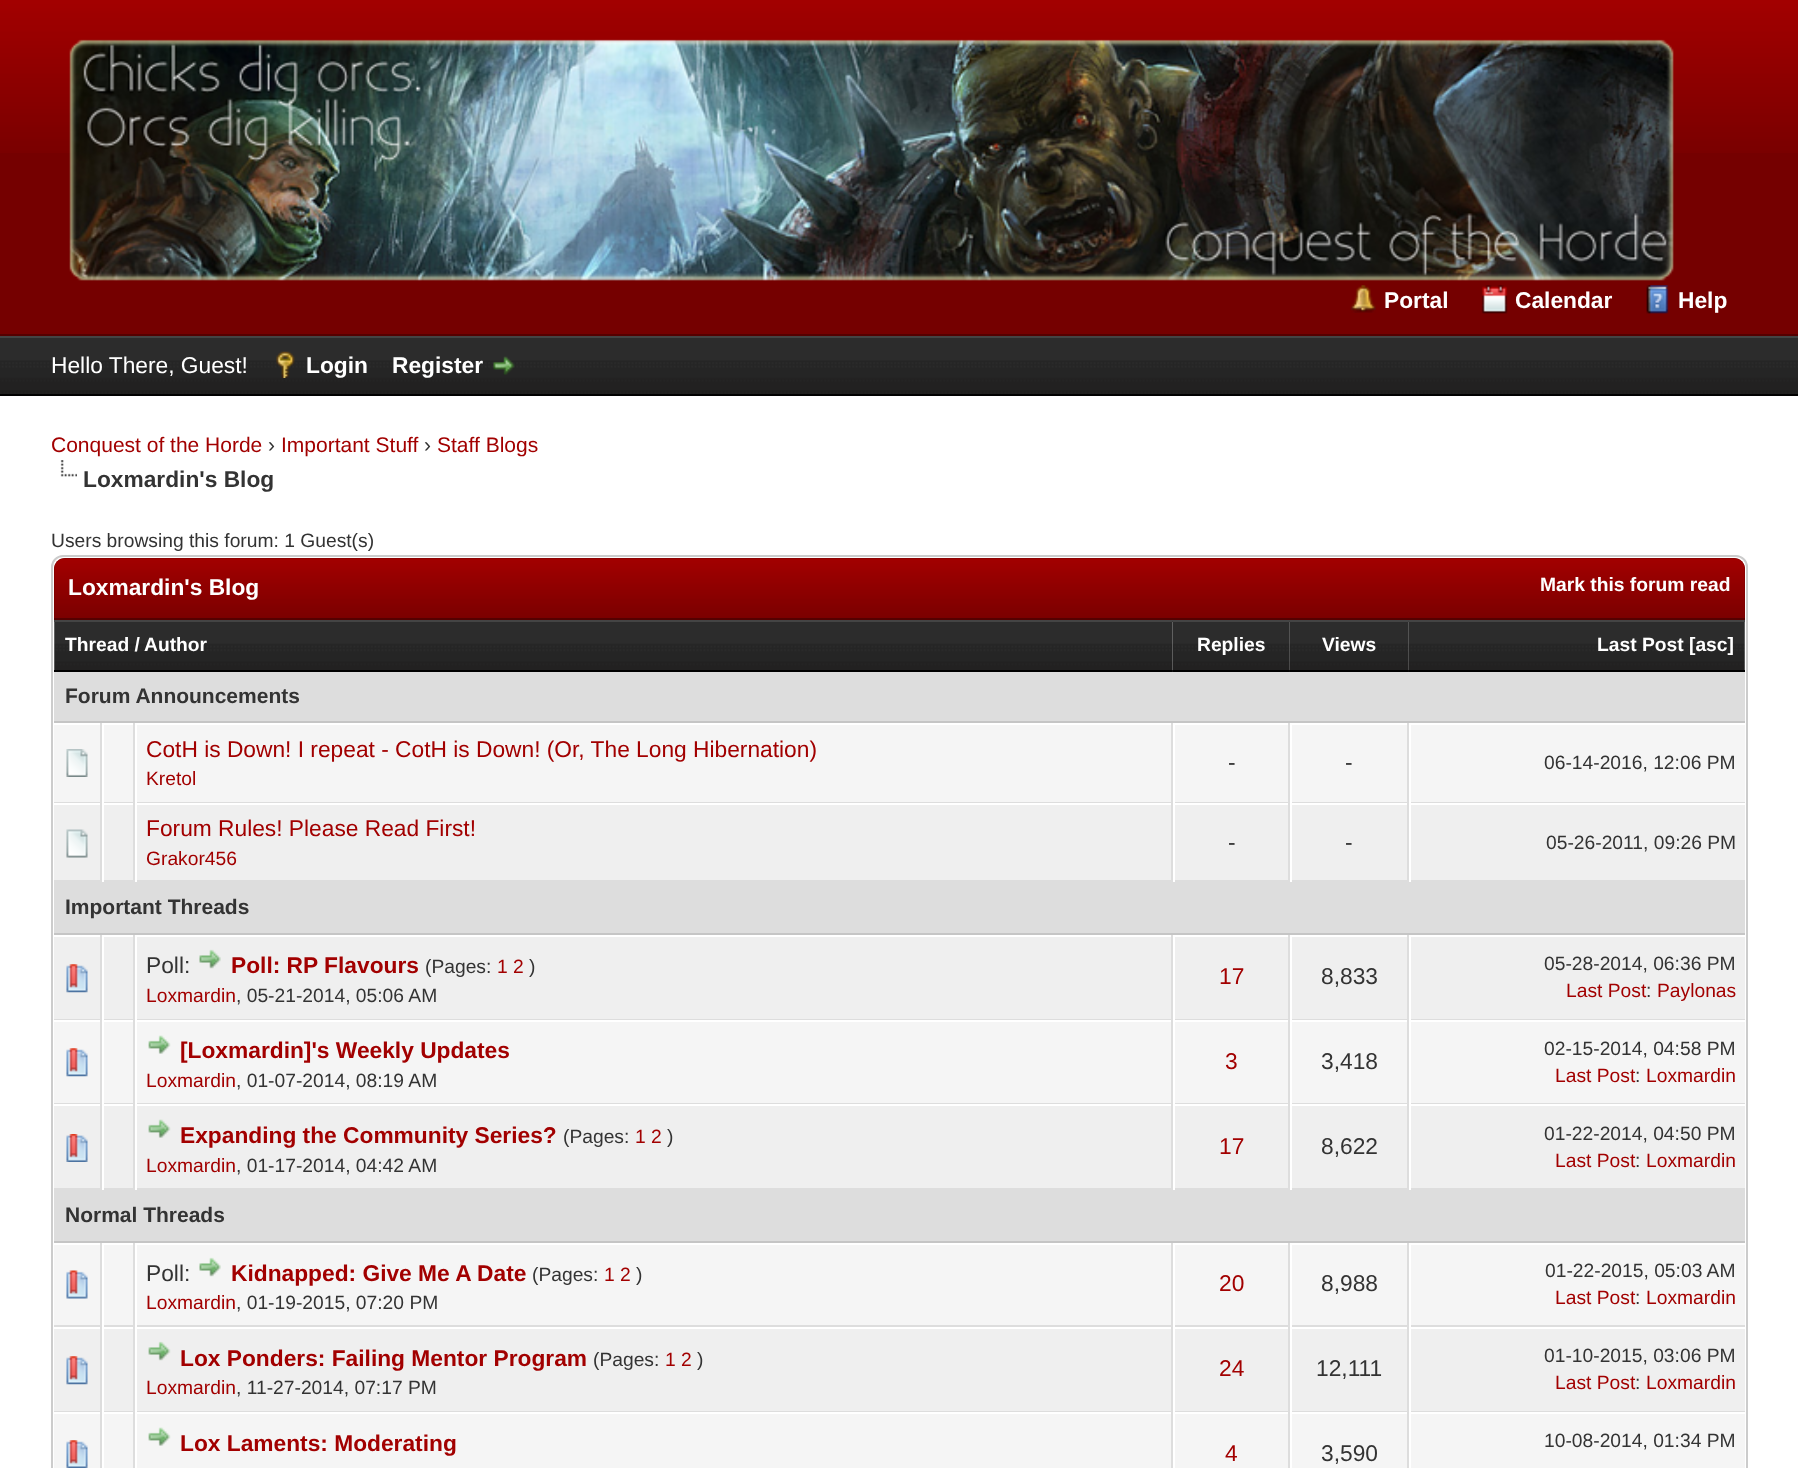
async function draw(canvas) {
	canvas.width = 1798;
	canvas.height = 1468;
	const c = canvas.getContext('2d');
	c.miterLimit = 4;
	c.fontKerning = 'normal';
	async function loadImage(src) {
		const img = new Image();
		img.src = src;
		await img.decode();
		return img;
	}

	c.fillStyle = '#fff';
	c.fillRect(0, 0, 1798, 1468);
	c.fillStyle = '#750000';
	c.fillRect(0, 153, 1798, 181);
	c.drawImage(await loadImage('img1.png'), 0, 0, 1798, 153);
	c.fillStyle = '#500';
	c.fillRect(0, 334, 1798, 2);
	c.drawImage(await loadImage('img2.png'), 69, 39, 1605, 242);
	c.drawImage(await loadImage('img3.png'), 1350, 285, 26, 28);
	c.font = 'bold 22.75px Liberation Sans';
	c.fillStyle = '#fff';
	c.fillText('Portal', 1384, 308);
	c.drawImage(await loadImage('img4.png'), 1481, 285, 27, 29);
	c.fillText('Calendar', 1515, 308);
	c.drawImage(await loadImage('img5.png'), 1646, 285, 23, 29);
	c.fillText('Help', 1678, 308);
	c.drawImage(await loadImage('img6.png'), 0, 338, 1798, 56);
	c.fillStyle = '#444';
	c.fillRect(0, 336, 1798, 2);
	c.fillStyle = '#000';
	c.fillRect(0, 394, 1798, 2);
	c.font = '22.75px Liberation Sans';
	c.fillStyle = '#fff';
	c.fillText('Hello There, Guest!', 51, 373);
	c.drawImage(await loadImage('img7.png'), 276, 351, 19, 27);
	c.font = 'bold 22.75px Liberation Sans';
	c.fillText('Login', 306, 373);
	c.fillText('Register', 392, 373);
	c.drawImage(await loadImage('img8.png'), 493, 356, 22, 19);
	c.font = '21px Liberation Sans';
	c.fillStyle = '#a20000';
	c.fillText('Conquest of the Horde', 51, 452);
	c.fillStyle = '#333';
	c.fillText('›', 268, 452);
	c.fillStyle = '#a20000';
	c.fillText('Important Stuff', 281, 452);
	c.fillStyle = '#333';
	c.fillText('›', 424, 452);
	c.fillStyle = '#a20000';
	c.fillText('Staff Blogs', 437, 452);
	c.drawImage(await loadImage('img9.png'), 60, 460, 17, 17);
	c.font = 'bold 22.75px Liberation Sans';
	c.fillStyle = '#333';
	c.fillText('Loxmardin\'s Blog', 83, 487);
	c.font = '19.25px Liberation Sans';
	c.fillText('Users browsing this forum: 1 Guest(s)', 51, 547);
	c.beginPath();
	c.roundRect(52, 556, 1695, 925, 11);
	c.strokeStyle = '#ccc';
	c.lineWidth = 2;
	c.stroke();
	c.fillStyle = '#750000';
	c.beginPath();
	c.roundRect(54, 558, 1691, 62, [11, 11, 0, 0]);
	c.fill();
	c.drawImage(await loadImage('img10.png'), 54, 558, 1691, 60);
	c.fillStyle = '#500';
	c.fillRect(54, 618, 1691, 2);
	c.font = 'bold 22.75px Liberation Sans';
	c.fillStyle = '#fff';
	c.fillText('Loxmardin\'s Blog', 68, 595);
	c.font = 'bold 19.25px Liberation Sans';
	c.fillText('Mark this forum read', 1540, 591);
	c.drawImage(await loadImage('img11.png'), 54, 622, 1119, 48);
	c.fillStyle = '#444';
	c.fillRect(54, 620, 1119, 2);
	c.fillStyle = '#000';
	c.fillRect(54, 670, 1119, 2);
	c.fillStyle = '#fff';
	c.fillText('Thread /', 65, 651);
	c.fillText('Author', 144, 651);
	c.drawImage(await loadImage('img12.png'), 1172, 621, 118, 51);
	c.fillStyle = '#444';
	c.fillRect(1173, 620, 117, 2);
	c.fillStyle = '#000';
	c.fillRect(1173, 670, 117, 2);
	c.fillStyle = '#fff';
	c.fillText('Replies', 1197, 651);
	c.drawImage(await loadImage('img13.png'), 1289, 621, 120, 51);
	c.fillStyle = '#444';
	c.fillRect(1290, 620, 119, 2);
	c.fillStyle = '#000';
	c.fillRect(1290, 670, 119, 2);
	c.fillStyle = '#fff';
	c.fillText('Views', 1322, 651);
	c.drawImage(await loadImage('img14.png'), 1408, 621, 337, 51);
	c.fillStyle = '#444';
	c.fillRect(1409, 620, 336, 2);
	c.fillStyle = '#000';
	c.fillRect(1409, 670, 336, 2);
	c.fillStyle = '#fff';
	c.fillText('Last Post [asc]', 1597, 651);
	c.fillStyle = '#ddd';
	c.fillRect(54, 672, 1691, 49);
	c.fillStyle = '#c5c5c5';
	c.fillRect(54, 721, 1691, 2);
	c.font = 'bold 21px Liberation Sans';
	c.fillStyle = '#333';
	c.fillText('Forum Announcements', 65, 703);
	for (const [x, y, w, h, color] of [
		[54, 725, 46, 77, '#f5f5f5'],
		[100, 723, 2, 159, '#ddd'],
		[54, 802, 48, 1, '#ddd'],
	]) {
		c.fillStyle = color;
		c.fillRect(x, y, w, h);
	}
	c.drawImage(await loadImage('img15.png'), 66, 749, 22, 28);
	for (const [x, y, w, h, color] of [
		[104, 725, 29, 77, '#f5f5f5'],
		[133, 723, 2, 159, '#ddd'],
		[102, 802, 33, 1, '#ddd'],
		[102, 802, 2, 1, '#fff'],
		[137, 725, 1034, 77, '#f5f5f5'],
		[1171, 723, 2, 159, '#ddd'],
		[135, 802, 1038, 1, '#ddd'],
		[135, 802, 2, 1, '#fff'],
	]) {
		c.fillStyle = color;
		c.fillRect(x, y, w, h);
	}
	c.font = '22.75px Liberation Sans';
	c.fillStyle = '#a20000';
	c.fillText('CotH is Down! I repeat - CotH is Down! (Or, The Long Hibernation)', 146, 757);
	c.font = '19.25px Liberation Sans';
	c.fillText('Kretol', 146, 785);
	for (const [x, y, w, h, color] of [
		[1175, 725, 113, 77, '#f5f5f5'],
		[1288, 723, 2, 159, '#ddd'],
		[1173, 802, 117, 1, '#ddd'],
		[1173, 802, 2, 1, '#fff'],
	]) {
		c.fillStyle = color;
		c.fillRect(x, y, w, h);
	}
	c.font = '22.75px Liberation Sans';
	c.fillStyle = '#333';
	c.fillText('-', 1228, 770);
	for (const [x, y, w, h, color] of [
		[1292, 725, 115, 77, '#f5f5f5'],
		[1407, 723, 2, 159, '#ddd'],
		[1290, 802, 455, 1, '#ddd'],
		[1290, 802, 2, 1, '#fff'],
	]) {
		c.fillStyle = color;
		c.fillRect(x, y, w, h);
	}
	c.fillStyle = '#333';
	c.fillText('-', 1345, 770);
	c.fillStyle = '#f5f5f5';
	c.fillRect(1411, 725, 334, 77);
	c.fillStyle = '#fff';
	c.fillRect(1409, 802, 2, 1);
	c.font = '19.25px Liberation Sans';
	c.fillStyle = '#333';
	c.fillText('06-14-2016, 12:06 PM', 1544, 769);
	c.fillStyle = '#efefef';
	c.fillRect(54, 805, 46, 75);
	c.fillStyle = '#ddd';
	c.fillRect(54, 880, 1691, 53);
	c.drawImage(await loadImage('img16.png'), 66, 829, 22, 29);
	for (const [x, y, w, h, color] of [
		[104, 805, 29, 75, '#efefef'],
		[102, 880, 2, 2, '#fff'],
		[137, 805, 1034, 75, '#efefef'],
		[135, 880, 2, 2, '#fff'],
	]) {
		c.fillStyle = color;
		c.fillRect(x, y, w, h);
	}
	c.font = '22.75px Liberation Sans';
	c.fillStyle = '#a20000';
	c.fillText('Forum Rules! Please Read First!', 146, 836);
	c.font = '19.25px Liberation Sans';
	c.fillText('Grakor456', 146, 865);
	c.fillStyle = '#efefef';
	c.fillRect(1175, 805, 113, 75);
	c.fillStyle = '#fff';
	c.fillRect(1173, 880, 2, 2);
	c.font = '22.75px Liberation Sans';
	c.fillStyle = '#333';
	c.fillText('-', 1228, 850);
	c.fillStyle = '#efefef';
	c.fillRect(1292, 805, 115, 75);
	c.fillStyle = '#fff';
	c.fillRect(1290, 880, 2, 2);
	c.fillStyle = '#333';
	c.fillText('-', 1345, 850);
	c.fillStyle = '#efefef';
	c.fillRect(1411, 805, 334, 75);
	c.fillStyle = '#fff';
	c.fillRect(1409, 880, 2, 2);
	c.font = '19.25px Liberation Sans';
	c.fillStyle = '#333';
	c.fillText('05-26-2011, 09:26 PM', 1546, 849);
	c.fillStyle = '#c5c5c5';
	c.fillRect(54, 933, 1691, 2);
	c.font = 'bold 21px Liberation Sans';
	c.fillStyle = '#333';
	c.fillText('Important Threads', 65, 914);
	for (const [x, y, w, h, color] of [
		[54, 937, 46, 82, '#efefef'],
		[100, 935, 2, 255, '#ddd'],
		[54, 1019, 48, 1, '#ddd'],
	]) {
		c.fillStyle = color;
		c.fillRect(x, y, w, h);
	}
	c.drawImage(await loadImage('img17.png'), 66, 964, 22, 29);
	for (const [x, y, w, h, color] of [
		[104, 937, 29, 82, '#efefef'],
		[133, 935, 2, 255, '#ddd'],
		[102, 1019, 33, 1, '#ddd'],
		[102, 1019, 2, 1, '#fff'],
		[137, 937, 1034, 82, '#efefef'],
		[1171, 935, 2, 255, '#ddd'],
		[135, 1019, 1038, 1, '#ddd'],
		[135, 1019, 2, 1, '#fff'],
	]) {
		c.fillStyle = color;
		c.fillRect(x, y, w, h);
	}
	c.font = '22.75px Liberation Sans';
	c.fillStyle = '#333';
	c.fillText('Poll:', 146, 973);
	c.drawImage(await loadImage('img18.png'), 199, 949, 22, 20);
	c.font = 'bold 22.75px Liberation Sans';
	c.fillStyle = '#a20000';
	c.fillText('Poll: RP Flavours', 231, 973);
	c.font = '19.25px Liberation Sans';
	c.fillStyle = '#333';
	c.fillText('(Pages:', 425, 973);
	c.fillStyle = '#a20000';
	c.fillText('1 2', 497, 973);
	c.fillStyle = '#333';
	c.fillText(')', 529, 973);
	c.fillStyle = '#a20000';
	c.fillText('Loxmardin', 146, 1002);
	c.fillStyle = '#333';
	c.fillText(', 05-21-2014, 05:06 AM', 236, 1002);
	for (const [x, y, w, h, color] of [
		[1175, 937, 113, 82, '#efefef'],
		[1288, 935, 2, 255, '#ddd'],
		[1173, 1019, 117, 1, '#ddd'],
		[1173, 1019, 2, 1, '#fff'],
	]) {
		c.fillStyle = color;
		c.fillRect(x, y, w, h);
	}
	c.font = '22.75px Liberation Sans';
	c.fillStyle = '#a20000';
	c.fillText('17', 1219, 984);
	for (const [x, y, w, h, color] of [
		[1292, 937, 115, 82, '#efefef'],
		[1407, 935, 2, 255, '#ddd'],
		[1290, 1019, 455, 1, '#ddd'],
		[1290, 1019, 2, 1, '#fff'],
	]) {
		c.fillStyle = color;
		c.fillRect(x, y, w, h);
	}
	c.fillStyle = '#333';
	c.fillText('8,833', 1321, 984);
	c.fillStyle = '#efefef';
	c.fillRect(1411, 937, 334, 82);
	c.fillStyle = '#fff';
	c.fillRect(1409, 1019, 2, 1);
	c.font = '19.25px Liberation Sans';
	c.fillStyle = '#333';
	c.fillText('05-28-2014, 06:36 PM', 1544, 970);
	c.fillStyle = '#a20000';
	c.fillText('Last Post', 1566, 997);
	c.fillStyle = '#333';
	c.fillText(':', 1646, 997);
	c.fillStyle = '#a20000';
	c.fillText('Paylonas', 1657, 997);
	c.fillStyle = '#f5f5f5';
	c.fillRect(54, 1022, 46, 81);
	c.fillStyle = '#ddd';
	c.fillRect(54, 1103, 1691, 1);
	c.drawImage(await loadImage('img19.png'), 66, 1048, 22, 29);
	for (const [x, y, w, h, color] of [
		[104, 1022, 29, 81, '#f5f5f5'],
		[102, 1103, 2, 1, '#fff'],
		[137, 1022, 1034, 81, '#f5f5f5'],
		[135, 1103, 2, 1, '#fff'],
	]) {
		c.fillStyle = color;
		c.fillRect(x, y, w, h);
	}
	c.drawImage(await loadImage('img20.png'), 148, 1035, 23, 19);
	c.font = 'bold 22.75px Liberation Sans';
	c.fillStyle = '#a20000';
	c.fillText('[Loxmardin]\'s Weekly Updates', 180, 1058);
	c.font = '19.25px Liberation Sans';
	c.fillText('Loxmardin', 146, 1087);
	c.fillStyle = '#333';
	c.fillText(', 01-07-2014, 08:19 AM', 236, 1087);
	c.fillStyle = '#f5f5f5';
	c.fillRect(1175, 1022, 113, 81);
	c.fillStyle = '#fff';
	c.fillRect(1173, 1103, 2, 1);
	c.font = '22.75px Liberation Sans';
	c.fillStyle = '#a20000';
	c.fillText('3', 1225, 1069);
	c.fillStyle = '#f5f5f5';
	c.fillRect(1292, 1022, 115, 81);
	c.fillStyle = '#fff';
	c.fillRect(1290, 1103, 2, 1);
	c.fillStyle = '#333';
	c.fillText('3,418', 1321, 1069);
	c.fillStyle = '#f5f5f5';
	c.fillRect(1411, 1022, 334, 81);
	c.fillStyle = '#fff';
	c.fillRect(1409, 1103, 2, 1);
	c.font = '19.25px Liberation Sans';
	c.fillStyle = '#333';
	c.fillText('02-15-2014, 04:58 PM', 1544, 1055);
	c.fillStyle = '#a20000';
	c.fillText('Last Post', 1555, 1082);
	c.fillStyle = '#333';
	c.fillText(':', 1635, 1082);
	c.fillStyle = '#a20000';
	c.fillText('Loxmardin', 1646, 1082);
	c.fillStyle = '#efefef';
	c.fillRect(54, 1106, 46, 82);
	c.fillStyle = '#ddd';
	c.fillRect(54, 1188, 1691, 53);
	c.drawImage(await loadImage('img21.png'), 66, 1134, 22, 28);
	for (const [x, y, w, h, color] of [
		[104, 1106, 29, 82, '#efefef'],
		[102, 1188, 2, 2, '#fff'],
		[137, 1106, 1034, 82, '#efefef'],
		[135, 1188, 2, 2, '#fff'],
	]) {
		c.fillStyle = color;
		c.fillRect(x, y, w, h);
	}
	c.drawImage(await loadImage('img22.png'), 148, 1119, 23, 19);
	c.font = 'bold 22.75px Liberation Sans';
	c.fillStyle = '#a20000';
	c.fillText('Expanding the Community Series?', 180, 1143);
	c.font = '19.25px Liberation Sans';
	c.fillStyle = '#333';
	c.fillText('(Pages:', 563, 1143);
	c.fillStyle = '#a20000';
	c.fillText('1 2', 635, 1143);
	c.fillStyle = '#333';
	c.fillText(')', 667, 1143);
	c.fillStyle = '#a20000';
	c.fillText('Loxmardin', 146, 1172);
	c.fillStyle = '#333';
	c.fillText(', 01-17-2014, 04:42 AM', 236, 1172);
	c.fillStyle = '#efefef';
	c.fillRect(1175, 1106, 113, 82);
	c.fillStyle = '#fff';
	c.fillRect(1173, 1188, 2, 2);
	c.font = '22.75px Liberation Sans';
	c.fillStyle = '#a20000';
	c.fillText('17', 1219, 1154);
	c.fillStyle = '#efefef';
	c.fillRect(1292, 1106, 115, 82);
	c.fillStyle = '#fff';
	c.fillRect(1290, 1188, 2, 2);
	c.fillStyle = '#333';
	c.fillText('8,622', 1321, 1154);
	c.fillStyle = '#efefef';
	c.fillRect(1411, 1106, 334, 82);
	c.fillStyle = '#fff';
	c.fillRect(1409, 1188, 2, 2);
	c.font = '19.25px Liberation Sans';
	c.fillStyle = '#333';
	c.fillText('01-22-2014, 04:50 PM', 1544, 1140);
	c.fillStyle = '#a20000';
	c.fillText('Last Post', 1555, 1167);
	c.fillStyle = '#333';
	c.fillText(':', 1635, 1167);
	c.fillStyle = '#a20000';
	c.fillText('Loxmardin', 1646, 1167);
	c.fillStyle = '#c5c5c5';
	c.fillRect(54, 1241, 1691, 2);
	c.font = 'bold 21px Liberation Sans';
	c.fillStyle = '#333';
	c.fillText('Normal Threads', 65, 1222);
	for (const [x, y, w, h, color] of [
		[54, 1245, 46, 80, '#f5f5f5'],
		[100, 1243, 2, 225, '#ddd'],
		[54, 1325, 48, 2, '#ddd'],
	]) {
		c.fillStyle = color;
		c.fillRect(x, y, w, h);
	}
	c.drawImage(await loadImage('img23.png'), 66, 1270, 22, 29);
	for (const [x, y, w, h, color] of [
		[104, 1245, 29, 80, '#f5f5f5'],
		[133, 1243, 2, 225, '#ddd'],
		[102, 1325, 33, 2, '#ddd'],
		[102, 1325, 2, 2, '#fff'],
		[137, 1245, 1034, 80, '#f5f5f5'],
		[1171, 1243, 2, 225, '#ddd'],
		[135, 1325, 1038, 2, '#ddd'],
		[135, 1325, 2, 2, '#fff'],
	]) {
		c.fillStyle = color;
		c.fillRect(x, y, w, h);
	}
	c.font = '22.75px Liberation Sans';
	c.fillStyle = '#333';
	c.fillText('Poll:', 146, 1281);
	c.drawImage(await loadImage('img24.png'), 199, 1257, 22, 20);
	c.font = 'bold 22.75px Liberation Sans';
	c.fillStyle = '#a20000';
	c.fillText('Kidnapped: Give Me A Date', 231, 1281);
	c.font = '19.25px Liberation Sans';
	c.fillStyle = '#333';
	c.fillText('(Pages:', 532, 1281);
	c.fillStyle = '#a20000';
	c.fillText('1 2', 604, 1281);
	c.fillStyle = '#333';
	c.fillText(')', 636, 1281);
	c.fillStyle = '#a20000';
	c.fillText('Loxmardin', 146, 1309);
	c.fillStyle = '#333';
	c.fillText(', 01-19-2015, 07:20 PM', 236, 1309);
	for (const [x, y, w, h, color] of [
		[1175, 1245, 113, 80, '#f5f5f5'],
		[1288, 1243, 2, 225, '#ddd'],
		[1173, 1325, 117, 2, '#ddd'],
		[1173, 1325, 2, 2, '#fff'],
	]) {
		c.fillStyle = color;
		c.fillRect(x, y, w, h);
	}
	c.font = '22.75px Liberation Sans';
	c.fillStyle = '#a20000';
	c.fillText('20', 1219, 1291);
	for (const [x, y, w, h, color] of [
		[1292, 1245, 115, 80, '#f5f5f5'],
		[1407, 1243, 2, 225, '#ddd'],
		[1290, 1325, 455, 2, '#ddd'],
		[1290, 1325, 2, 2, '#fff'],
	]) {
		c.fillStyle = color;
		c.fillRect(x, y, w, h);
	}
	c.fillStyle = '#333';
	c.fillText('8,988', 1321, 1291);
	c.fillStyle = '#f5f5f5';
	c.fillRect(1411, 1245, 334, 80);
	c.fillStyle = '#fff';
	c.fillRect(1409, 1325, 2, 2);
	c.font = '19.25px Liberation Sans';
	c.fillStyle = '#333';
	c.fillText('01-22-2015, 05:03 AM', 1545, 1277);
	c.fillStyle = '#a20000';
	c.fillText('Last Post', 1555, 1304);
	c.fillStyle = '#333';
	c.fillText(':', 1635, 1304);
	c.fillStyle = '#a20000';
	c.fillText('Loxmardin', 1646, 1304);
	c.fillStyle = '#efefef';
	c.fillRect(54, 1329, 46, 82);
	c.fillStyle = '#ddd';
	c.fillRect(54, 1411, 1691, 1);
	c.drawImage(await loadImage('img17.png'), 66, 1356, 22, 29);
	for (const [x, y, w, h, color] of [
		[104, 1329, 29, 82, '#efefef'],
		[102, 1411, 2, 1, '#fff'],
		[137, 1329, 1034, 82, '#efefef'],
		[135, 1411, 2, 1, '#fff'],
	]) {
		c.fillStyle = color;
		c.fillRect(x, y, w, h);
	}
	c.drawImage(await loadImage('img25.png'), 148, 1341, 23, 20);
	c.font = 'bold 22.75px Liberation Sans';
	c.fillStyle = '#a20000';
	c.fillText('Lox Ponders: Failing Mentor Program', 180, 1366);
	c.font = '19.25px Liberation Sans';
	c.fillStyle = '#333';
	c.fillText('(Pages:', 593, 1366);
	c.fillStyle = '#a20000';
	c.fillText('1 2', 665, 1366);
	c.fillStyle = '#333';
	c.fillText(')', 697, 1366);
	c.fillStyle = '#a20000';
	c.fillText('Loxmardin', 146, 1394);
	c.fillStyle = '#333';
	c.fillText(', 11-27-2014, 07:17 PM', 236, 1394);
	c.fillStyle = '#efefef';
	c.fillRect(1175, 1329, 113, 82);
	c.fillStyle = '#fff';
	c.fillRect(1173, 1411, 2, 1);
	c.font = '22.75px Liberation Sans';
	c.fillStyle = '#a20000';
	c.fillText('24', 1219, 1376);
	c.fillStyle = '#efefef';
	c.fillRect(1292, 1329, 115, 82);
	c.fillStyle = '#fff';
	c.fillRect(1290, 1411, 2, 1);
	c.fillStyle = '#333';
	c.fillText('12,111', 1316, 1376);
	c.fillStyle = '#efefef';
	c.fillRect(1411, 1329, 334, 82);
	c.fillStyle = '#fff';
	c.fillRect(1409, 1411, 2, 1);
	c.font = '19.25px Liberation Sans';
	c.fillStyle = '#333';
	c.fillText('01-10-2015, 03:06 PM', 1544, 1362);
	c.fillStyle = '#a20000';
	c.fillText('Last Post', 1555, 1389);
	c.fillStyle = '#333';
	c.fillText(':', 1635, 1389);
	c.fillStyle = '#a20000';
	c.fillText('Loxmardin', 1646, 1389);
	c.fillStyle = '#f5f5f5';
	c.fillRect(54, 1414, 46, 54);
	c.drawImage(await loadImage('img26.png'), 66, 1440, 22, 28);
	c.fillRect(104, 1414, 29, 54);
	c.fillRect(137, 1414, 1034, 54);
	c.drawImage(await loadImage('img20.png'), 148, 1427, 23, 19);
	c.font = 'bold 22.75px Liberation Sans';
	c.fillStyle = '#a20000';
	c.fillText('Lox Laments: Moderating', 180, 1451);
	c.fillStyle = '#f5f5f5';
	c.fillRect(1175, 1414, 113, 54);
	c.font = '22.75px Liberation Sans';
	c.fillStyle = '#a20000';
	c.fillText('4', 1225, 1461);
	c.fillStyle = '#f5f5f5';
	c.fillRect(1292, 1414, 115, 54);
	c.fillStyle = '#333';
	c.fillText('3,590', 1321, 1461);
	c.fillStyle = '#f5f5f5';
	c.fillRect(1411, 1414, 334, 54);
	c.font = '19.25px Liberation Sans';
	c.fillStyle = '#333';
	c.fillText('10-08-2014, 01:34 PM', 1544, 1447);
}

draw(document.querySelector('canvas'));
